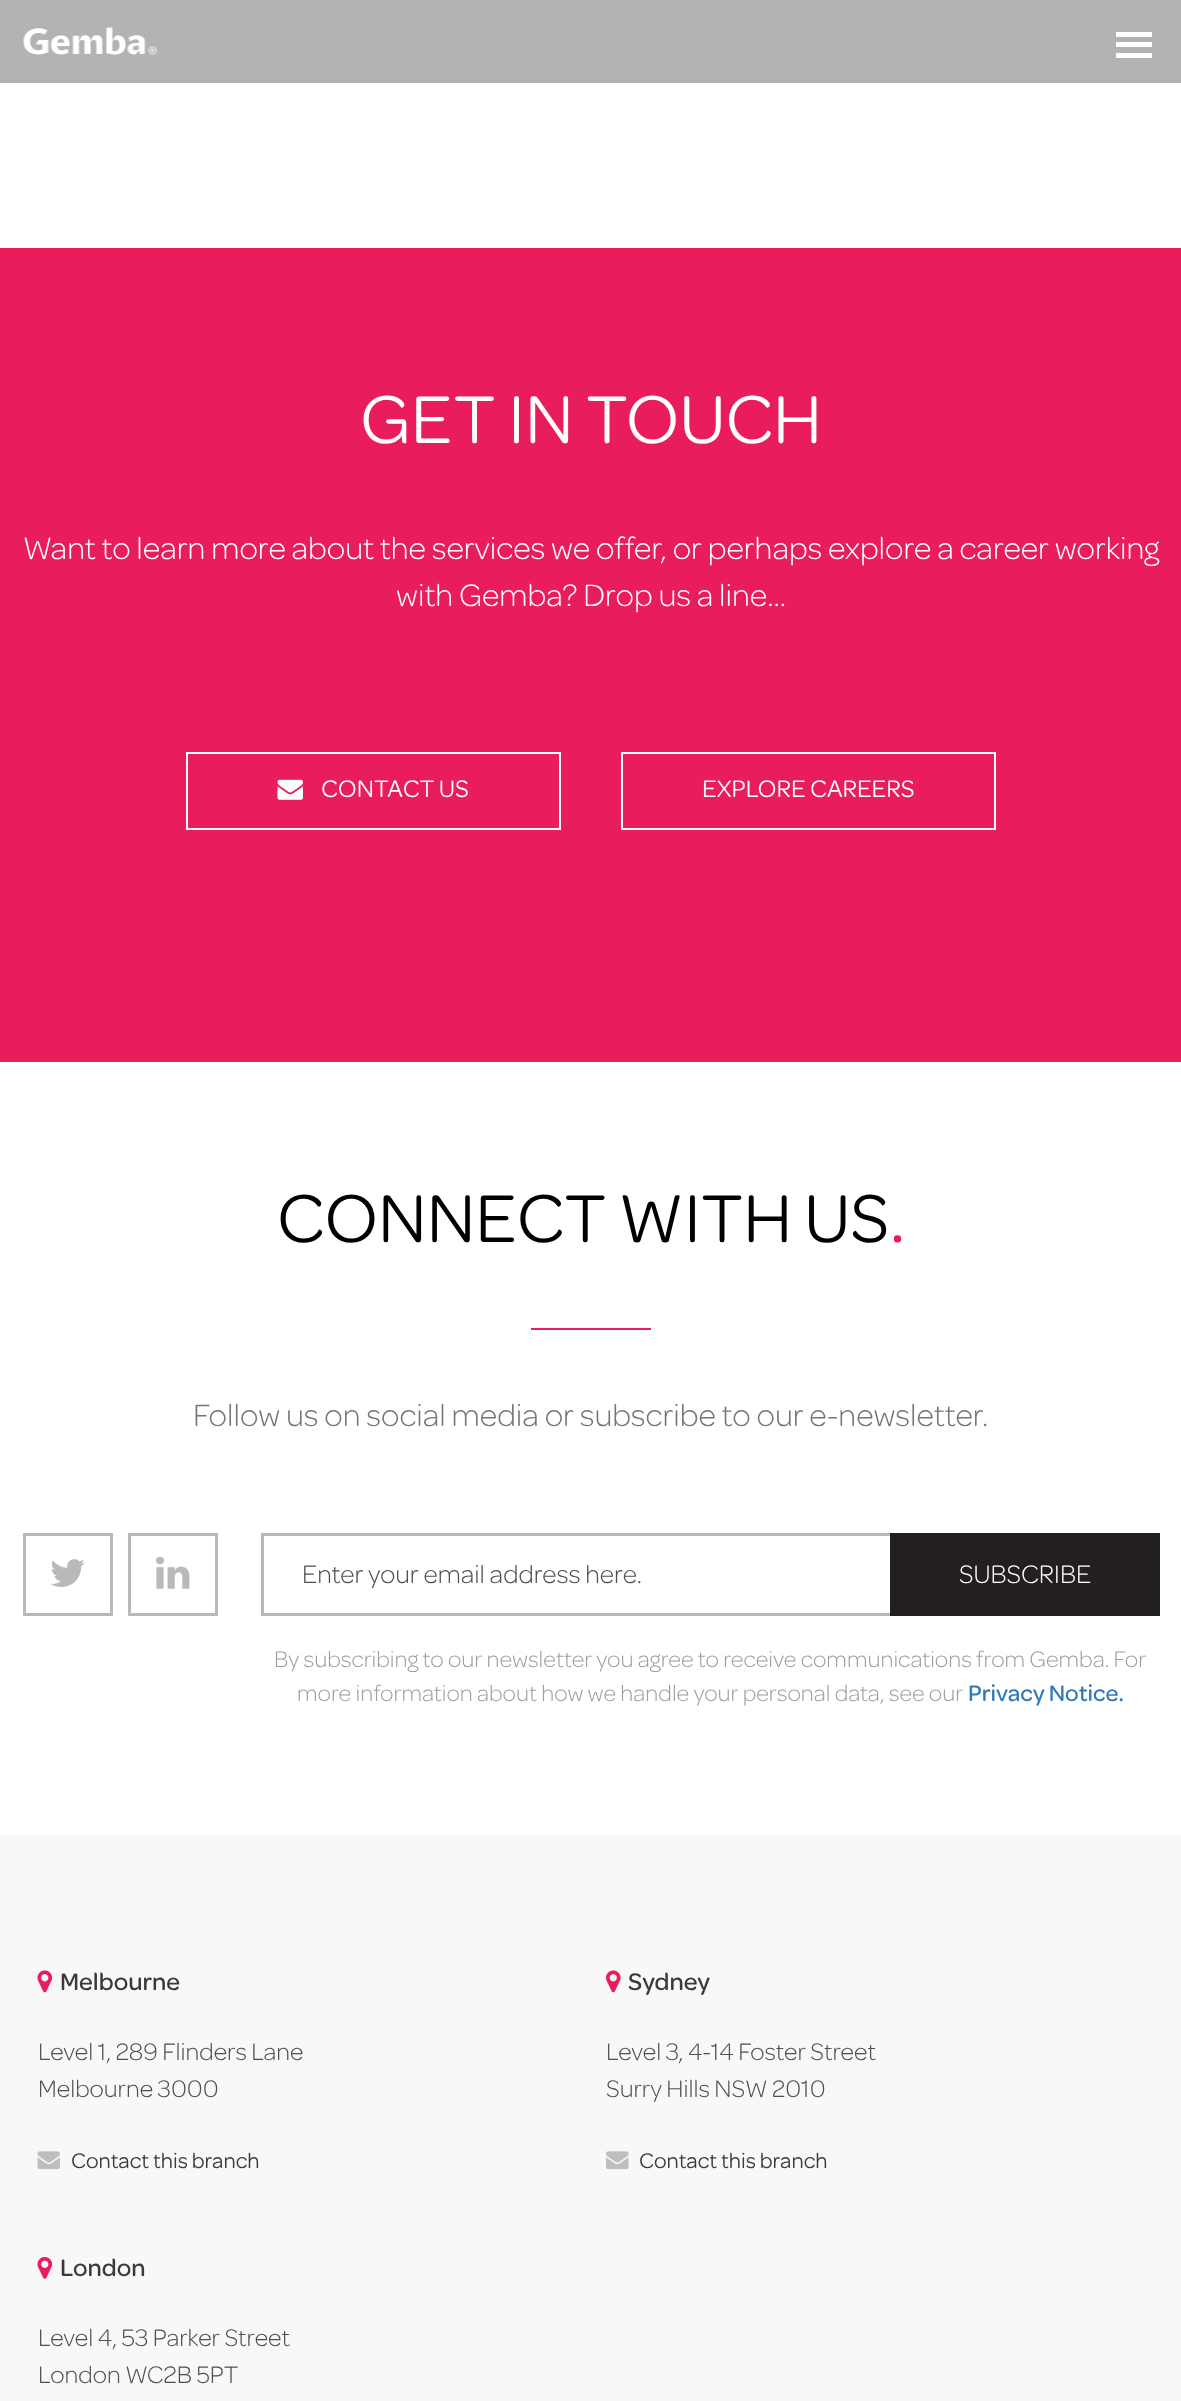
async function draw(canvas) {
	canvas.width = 1181;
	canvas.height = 2401;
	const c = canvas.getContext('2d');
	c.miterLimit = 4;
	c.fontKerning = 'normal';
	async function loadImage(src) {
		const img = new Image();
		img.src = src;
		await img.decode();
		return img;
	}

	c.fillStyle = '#fff';
	c.fillRect(0, 0, 1181, 2401);
	c.fillStyle = '#b3b3b3';
	c.fillRect(0, 0, 1181, 83);
	c.drawImage(await loadImage('img1.png'), 23, 27, 134, 28);
	for (const [x, y, w, h, color] of [
		[1116, 32, 36, 5, '#fff'],
		[1116, 42, 36, 5, '#fff'],
		[1116, 53, 36, 5, '#fff'],
		[0, 248, 1181, 814, '#ea1d5c'],
	]) {
		c.fillStyle = color;
		c.fillRect(x, y, w, h);
	}
	c.font = '72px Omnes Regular';
	c.fillStyle = '#fff';
	c.fillText('GET IN TOUCH', 360, 443);
	c.font = '300 33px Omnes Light';
	c.fillText('Want to learn more about the services we offer, or perhaps explore a career working', 23, 559);
	c.fillText('with Gemba? Drop us a line...', 396, 606);
	c.strokeStyle = '#fff';
	c.lineWidth = 2;
	c.strokeRect(187, 753, 373, 76);
	c.drawImage(await loadImage('img2.png'), 277, 779, 26, 21);
	c.font = '25.5px Omnes Regular';
	c.fillText('CONTACT US', 321, 797);
	c.strokeRect(622, 753, 373, 76);
	c.fillText('EXPLORE CAREERS', 702, 797);
	c.font = '72px Omnes Regular';
	c.fillStyle = '#000';
	c.fillText('CONNECT WITH US', 277, 1242);
	c.fillStyle = '#ea1d5c';
	c.fillText('.', 890, 1242);
	c.fillRect(531, 1328, 120, 2);
	c.font = '300 33px Omnes Light';
	c.fillStyle = '#767576';
	c.fillText('Follow us on social media or subscribe to our e-newsletter.', 193, 1426);
	c.strokeStyle = '#b9b9b9';
	c.lineWidth = 3;
	c.strokeRect(24.5, 1534.5, 87, 80);
	c.drawImage(await loadImage('img3.png'), 51, 1559, 34, 28);
	c.strokeRect(129.5, 1534.5, 87, 80);
	c.drawImage(await loadImage('img4.png'), 156, 1556, 34, 33);
	for (const [x, y, w, h, color] of [
		[261, 1533, 629, 3, '#b9b9b9'],
		[261, 1613, 629, 3, '#b9b9b9'],
		[261, 1533, 3, 83, '#b9b9b9'],
	]) {
		c.fillStyle = color;
		c.fillRect(x, y, w, h);
	}
	c.save();
	c.beginPath();
	c.rect(302, 1565, 550, 28);
	c.clip();
	c.font = '300 27px Omnes Light';
	c.fillStyle = '#4f4f4f';
	c.fillText('Enter your email address here.', 302, 1583);
	c.restore();
	c.fillStyle = '#231f20';
	c.fillRect(890, 1533, 270, 83);
	c.font = '300 27px Omnes Light';
	c.fillStyle = '#fff';
	c.fillText('SUBSCRIBE', 959, 1583);
	c.font = '300 24px Omnes Light';
	c.fillStyle = '#9e9e9e';
	c.fillText('By subscribing to our newsletter you agree to receive communications from Gemba. For', 274, 1667);
	c.fillText('more information about how we handle your personal data, see our', 297, 1701);
	c.font = '500 24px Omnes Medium';
	c.fillStyle = '#337ab7';
	c.fillText('Privacy Notice.', 968, 1701);
	c.fillStyle = '#f8f8f8';
	c.fillRect(0, 1835, 1181, 566);
	c.drawImage(await loadImage('img5.png'), 37, 1970, 16, 23);
	c.font = '500 25.5px Omnes Medium';
	c.fillStyle = '#3a3a3a';
	c.fillText('Melbourne', 60, 1990);
	c.font = '300 25.5px Omnes Light';
	c.fillStyle = '#4f4f4f';
	c.fillText('Level 1, 289 Flinders Lane', 38, 2060);
	c.fillText('Melbourne 3000', 38, 2097);
	c.drawImage(await loadImage('img6.png'), 37, 2151, 23, 19);
	c.font = '22.5px Omnes Regular';
	c.fillStyle = '#3a3a3a';
	c.fillText('Contact this branch', 71, 2168);
	c.drawImage(await loadImage('img7.png'), 606, 1970, 15, 23);
	c.font = '500 25.5px Omnes Medium';
	c.fillText('Sydney', 628, 1990);
	c.font = '300 25.5px Omnes Light';
	c.fillStyle = '#4f4f4f';
	c.fillText('Level 3, 4-14 Foster Street', 606, 2060);
	c.fillText('Surry Hills NSW 2010', 606, 2097);
	c.drawImage(await loadImage('img8.png'), 606, 2151, 23, 19);
	c.font = '22.5px Omnes Regular';
	c.fillStyle = '#3a3a3a';
	c.fillText('Contact this branch', 639, 2168);
	c.drawImage(await loadImage('img9.png'), 37, 2257, 16, 22);
	c.font = '500 25.5px Omnes Medium';
	c.fillText('London', 60, 2276);
	c.font = '300 25.5px Omnes Light';
	c.fillStyle = '#4f4f4f';
	c.fillText('Level 4, 53 Parker Street', 38, 2346);
	c.fillText('London WC2B 5PT', 38, 2383);
}

draw(document.querySelector('canvas'));
